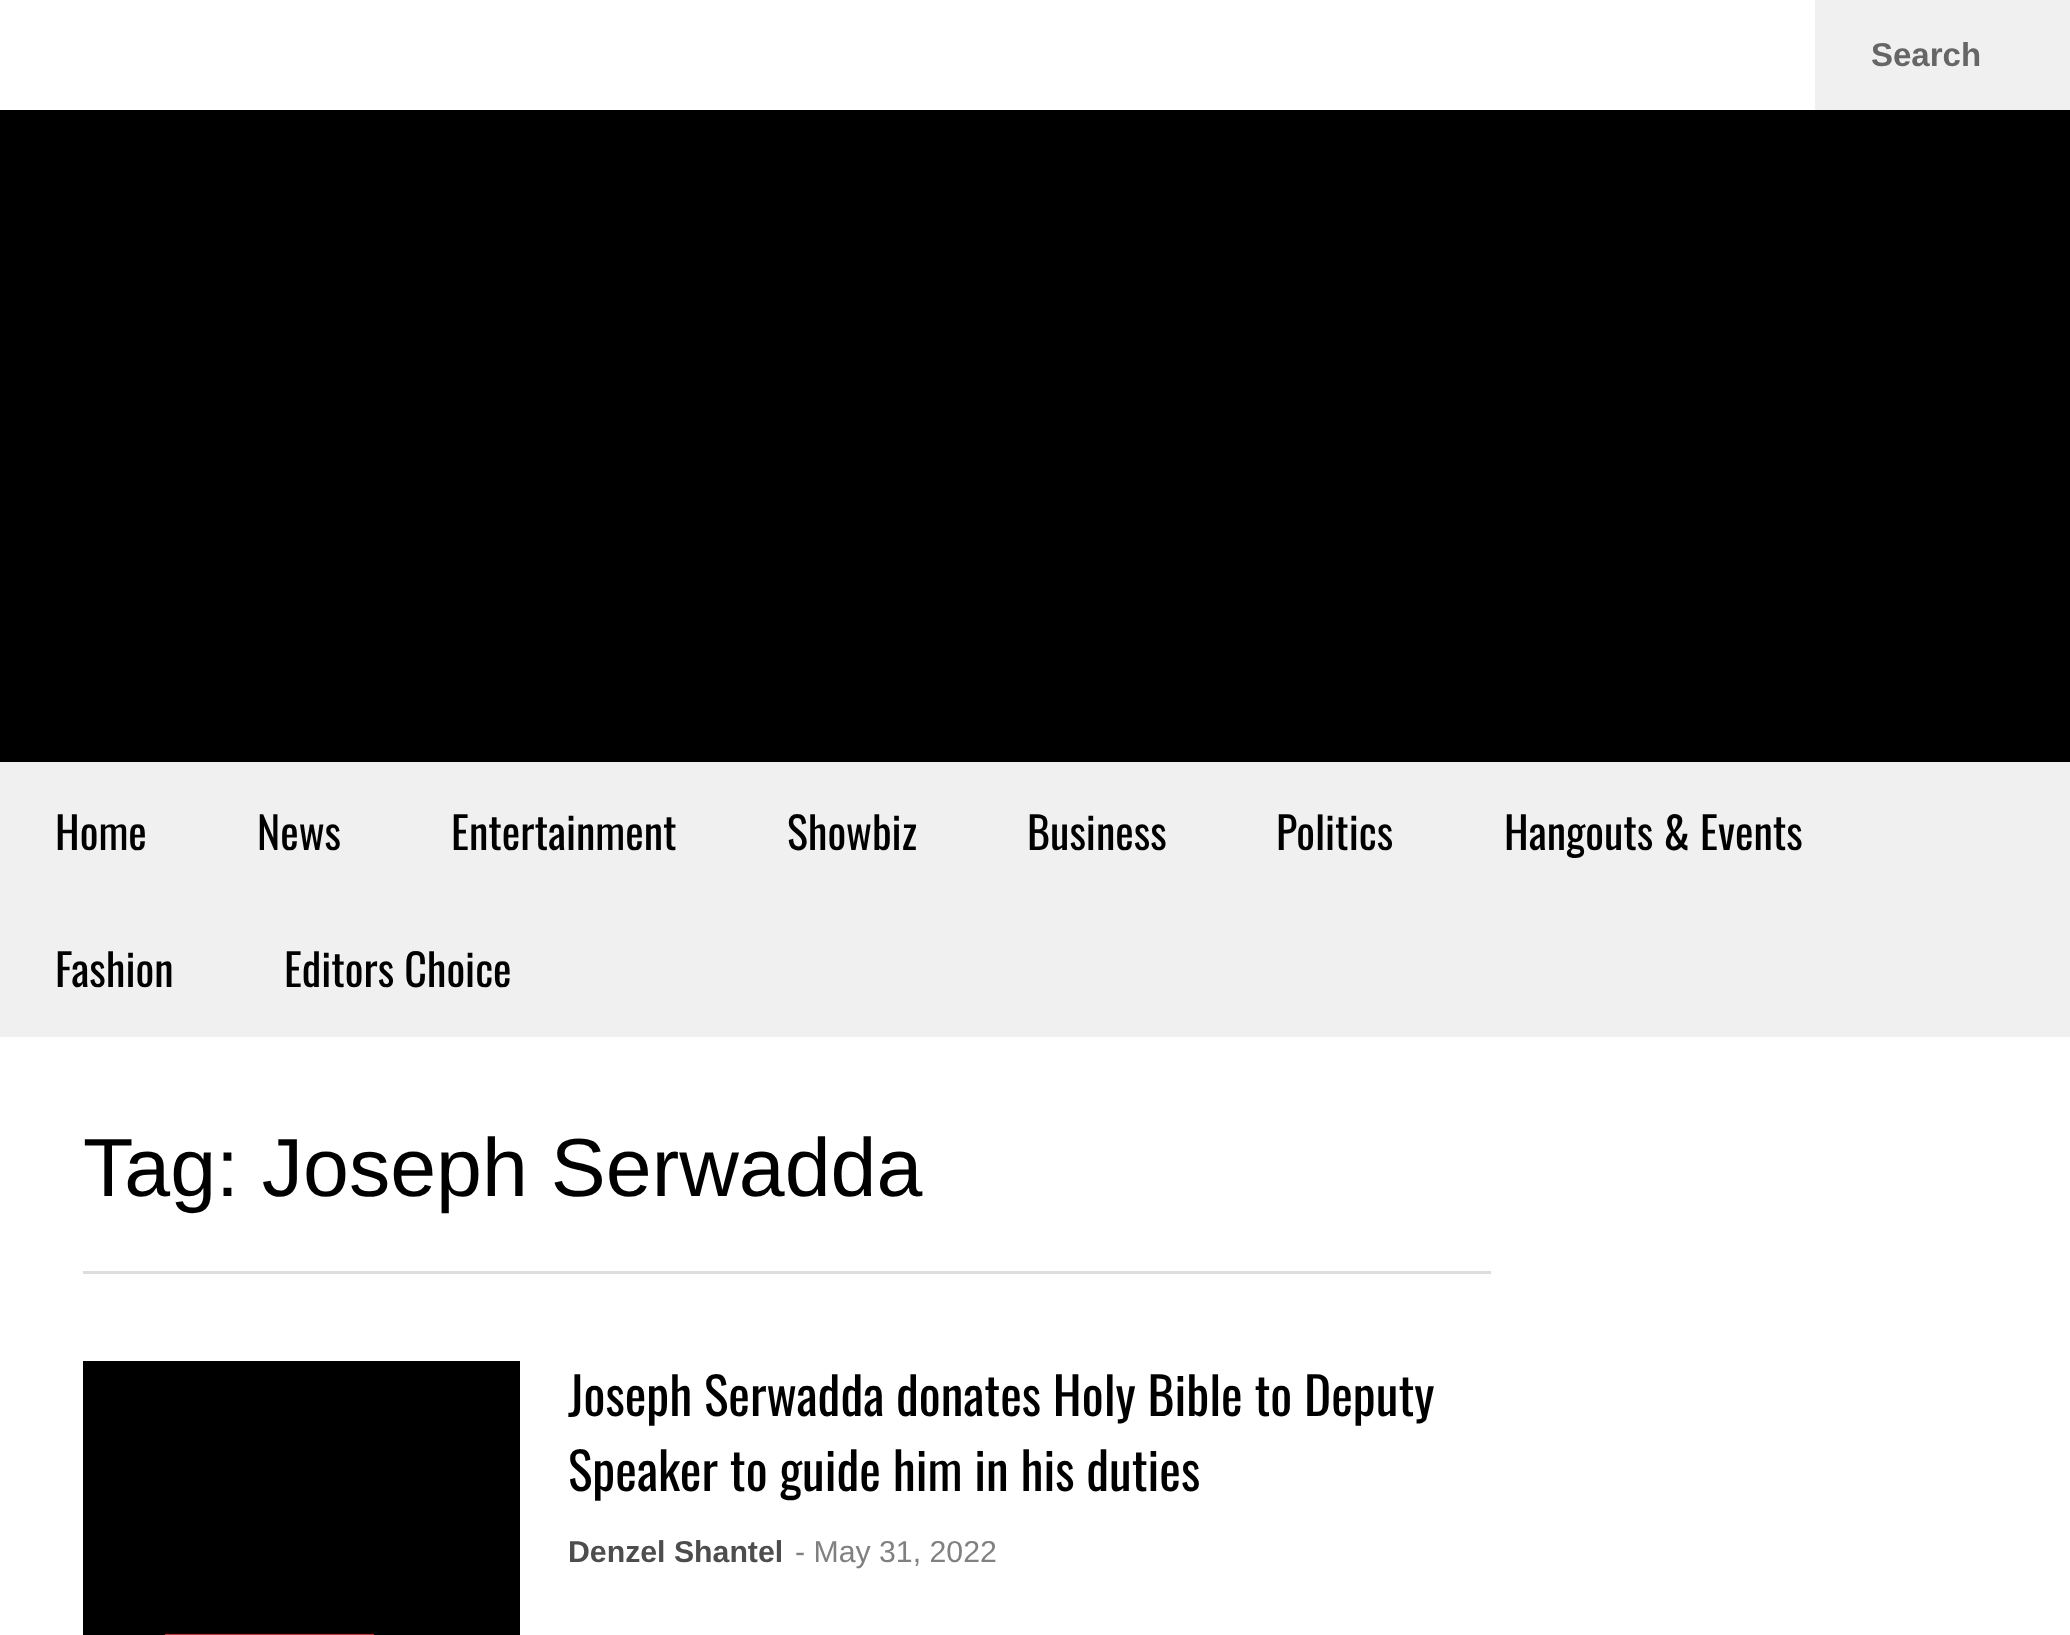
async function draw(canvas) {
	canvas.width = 2070;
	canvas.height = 1635;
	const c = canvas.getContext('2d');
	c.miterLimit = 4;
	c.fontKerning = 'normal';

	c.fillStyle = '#fff';
	c.fillRect(0, 0, 2070, 1635);
	c.fillStyle = '#f0f0f0';
	c.fillRect(1815, 0, 255, 110);
	c.font = 'bold 33px Liberation Sans';
	c.fillStyle = '#666';
	c.fillText('Search', 1871, 66);
	c.fillStyle = '#000';
	c.fillRect(0, 110, 2070, 652);
	c.fillStyle = '#f0f0f0';
	c.fillRect(0, 762, 2070, 275);
	c.font = '44px Oswald';
	c.fillStyle = '#000';
	for (const [text, x, y] of [
		['Home', 55, 850],
		['News', 257, 850],
		['Entertainment', 451, 850],
		['Showbiz', 787, 850],
		['Business', 1027, 850],
		['Politics', 1276, 850],
		['Hangouts & Events', 1504, 850],
		['Fashion', 55, 987],
		['Editors Choice', 284, 987],
	]) {
		c.fillText(text, x, y);
	}
	c.fillStyle = '#ddd';
	c.fillRect(83, 1271, 1408, 3);
	c.font = '82.5px Liberation Sans';
	c.fillStyle = '#000';
	c.fillText('Tag: Joseph Serwadda', 83, 1196);
	c.fillRect(83, 1361, 437, 274);
	c.fillStyle = '#d12f2f';
	c.fillRect(165, 1634, 209, 1);
	c.font = '51.5px Oswald';
	c.fillStyle = '#000';
	c.fillText('Joseph Serwadda donates Holy Bible to Deputy', 568, 1416);
	c.fillText('Speaker to guide him in his duties', 568, 1491);
	c.font = 'bold 30.25px Liberation Sans';
	c.fillStyle = '#4d4d4d';
	c.fillText('Denzel Shantel', 568, 1562);
	c.font = '30.25px Liberation Sans';
	c.fillStyle = '#808080';
	c.fillText('- May 31, 2022', 795, 1562);
}

draw(document.querySelector('canvas'));
